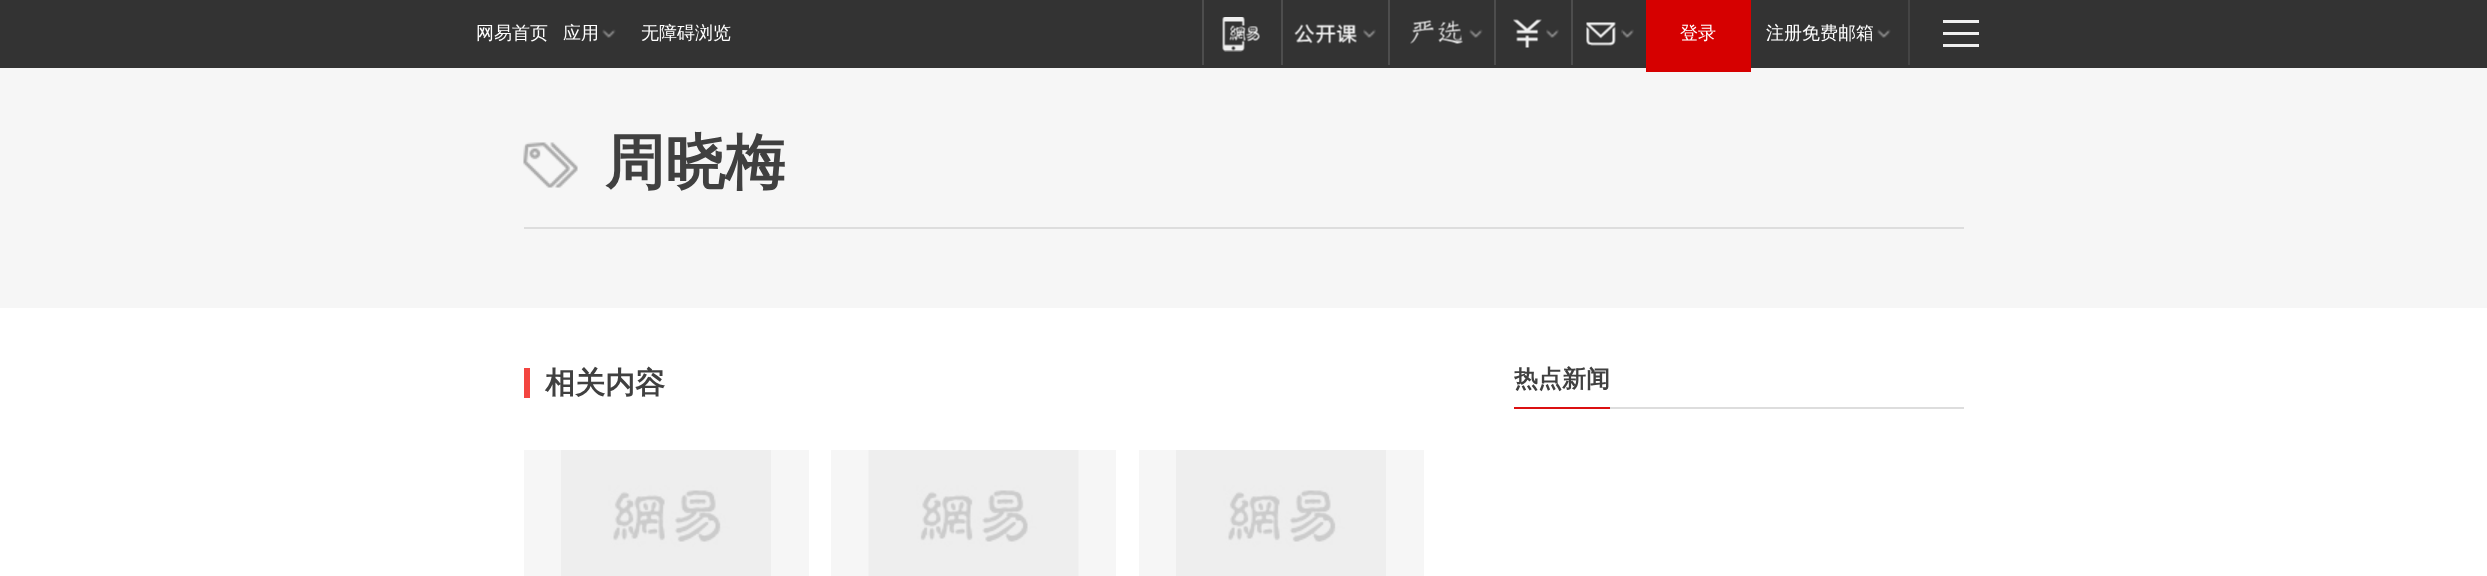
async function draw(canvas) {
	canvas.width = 2487;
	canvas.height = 576;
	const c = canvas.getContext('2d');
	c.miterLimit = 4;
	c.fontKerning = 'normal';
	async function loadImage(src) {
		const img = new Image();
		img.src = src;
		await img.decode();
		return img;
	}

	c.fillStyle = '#fff';
	c.fillRect(0, 0, 2487, 576);
	c.fillStyle = '#333';
	c.fillRect(0, 0, 2487, 68);
	c.font = '500 18px WenQuanYi Zen Hei';
	c.fillStyle = '#fff';
	c.fillText('网易首页', 476, 39);
	c.fillText('应用', 563, 39);
	c.drawImage(await loadImage('img1.png'), 602, 29, 14, 9);
	c.fillText('无障碍浏览', 641, 39);
	c.fillStyle = '#4d4d4d';
	c.fillRect(1202, 0, 2, 65);
	c.drawImage(await loadImage('img2.png'), 1222, 17, 38, 35);
	c.fillRect(1281, 0, 2, 65);
	c.drawImage(await loadImage('img3.png'), 1294, 24, 63, 20);
	c.drawImage(await loadImage('img4.png'), 1363, 29, 13, 9);
	c.fillRect(1388, 0, 2, 65);
	c.drawImage(await loadImage('img5.png'), 1410, 20, 53, 24);
	c.drawImage(await loadImage('img1.png'), 1469, 29, 14, 9);
	c.fillRect(1494, 0, 2, 65);
	c.drawImage(await loadImage('img6.png'), 1513, 19, 29, 29);
	c.drawImage(await loadImage('img4.png'), 1546, 29, 13, 9);
	c.fillRect(1571, 0, 2, 65);
	c.drawImage(await loadImage('img7.png'), 1586, 22, 30, 24);
	c.drawImage(await loadImage('img8.png'), 1621, 29, 13, 9);
	c.fillStyle = '#f6f6f6';
	c.fillRect(0, 68, 2487, 240);
	c.fillStyle = '#d60000';
	c.fillRect(1646, 0, 105, 72);
	c.fillStyle = '#fff';
	c.fillText('登录', 1680, 39);
	c.fillText('注册免费邮箱', 1766, 39);
	c.drawImage(await loadImage('img1.png'), 1877, 29, 14, 9);
	for (const [x, y, w, h, color] of [
		[1908, 0, 2, 65, '#444'],
		[1943, 20, 36, 3, '#efefef'],
		[1943, 32, 36, 3, '#efefef'],
		[1943, 44, 36, 3, '#efefef'],
	]) {
		c.fillStyle = color;
		c.fillRect(x, y, w, h);
	}
	c.drawImage(await loadImage('img9.png'), 523, 142, 55, 46);
	c.fillStyle = '#ddd';
	c.fillRect(524, 227, 1440, 2);
	c.font = 'bold 60px WenQuanYi Zen Hei';
	c.fillStyle = '#404040';
	c.fillText('周晓梅', 605, 183);
	c.fillStyle = '#f34540';
	c.fillRect(524, 368, 6, 30);
	c.font = 'bold 30px WenQuanYi Zen Hei';
	c.fillStyle = '#404040';
	c.fillText('相关内容', 545, 393);
	c.fillStyle = '#f6f6f6';
	c.fillRect(524, 450, 285, 126);
	c.drawImage(await loadImage('img10.png'), 561, 450, 210, 126);
	c.fillRect(831, 450, 285, 126);
	c.drawImage(await loadImage('img11.png'), 868, 450, 211, 126);
	c.fillRect(1139, 450, 285, 126);
	c.drawImage(await loadImage('img12.png'), 1176, 450, 210, 126);
	c.fillStyle = '#ddd';
	c.fillRect(1610, 407, 354, 2);
	c.font = 'bold 24px WenQuanYi Zen Hei';
	c.fillStyle = '#404040';
	c.fillText('热点新闻', 1514, 387);
	c.fillStyle = '#db1011';
	c.fillRect(1514, 407, 96, 2);
}

draw(document.querySelector('canvas'));
